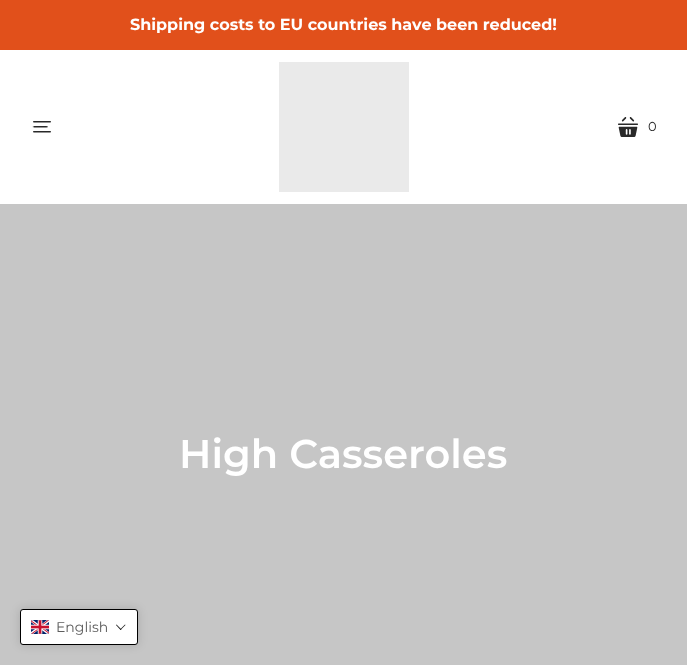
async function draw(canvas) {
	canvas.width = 687;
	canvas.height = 665;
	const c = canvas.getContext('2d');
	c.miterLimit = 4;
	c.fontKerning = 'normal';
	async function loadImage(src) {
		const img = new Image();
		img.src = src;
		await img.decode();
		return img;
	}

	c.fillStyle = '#fff';
	c.fillRect(0, 0, 687, 665);
	c.fillStyle = '#e1501b';
	c.fillRect(0, 0, 687, 50);
	c.font = 'bold 16px Montserrat';
	c.fillStyle = '#fff';
	c.fillText('Shipping costs to EU countries have been reduced!', 130, 30);
	c.drawImage(await loadImage('img1.png'), 33, 121, 18, 12);
	c.drawImage(await loadImage('img2.png'), 32, 126, 16, 2);
	c.fillStyle = '#eaeaea';
	c.fillRect(279, 62, 130, 130);
	c.drawImage(await loadImage('img3.png'), 618, 117, 20, 20);
	c.font = '13px Montserrat';
	c.fillStyle = '#292929';
	c.fillText('0', 648, 131);
	c.fillStyle = '#c6c6c6';
	c.fillRect(0, 204, 687, 461);
	c.font = '600 40px Montserrat';
	c.fillStyle = '#fff';
	c.fillText('High Casseroles', 179, 468);
	c.fillStyle = '#00000026';
	c.filter = 'blur(5px)';
	c.beginPath();
	c.roundRect(20, 609, 118, 36, 3);
	c.fill();
	c.filter = 'none';
	c.fillStyle = '#fff';
	c.beginPath();
	c.roundRect(20.5, 609.5, 117, 35, 2.5);
	c.fill();
	c.strokeStyle = '#000';
	c.stroke();
	c.drawImage(await loadImage('img4.png'), 31, 620, 18, 14);
	c.font = '14px Montserrat';
	c.fillStyle = '#5c5c5c';
	c.fillText('English', 56, 632);
	c.fillStyle = '#1a1a1a';
	c.beginPath();
	c.moveTo(125, 624.5);
	c.lineTo(125.5, 625);
	c.lineTo(120.5, 630);
	c.lineTo(120, 629.5);
	c.closePath();
	c.fill();
	c.beginPath();
	c.moveTo(116.5, 624.5);
	c.lineTo(121.5, 629.5);
	c.lineTo(120.5, 630);
	c.lineTo(116, 625);
	c.closePath();
	c.fill();
}

draw(document.querySelector('canvas'));
